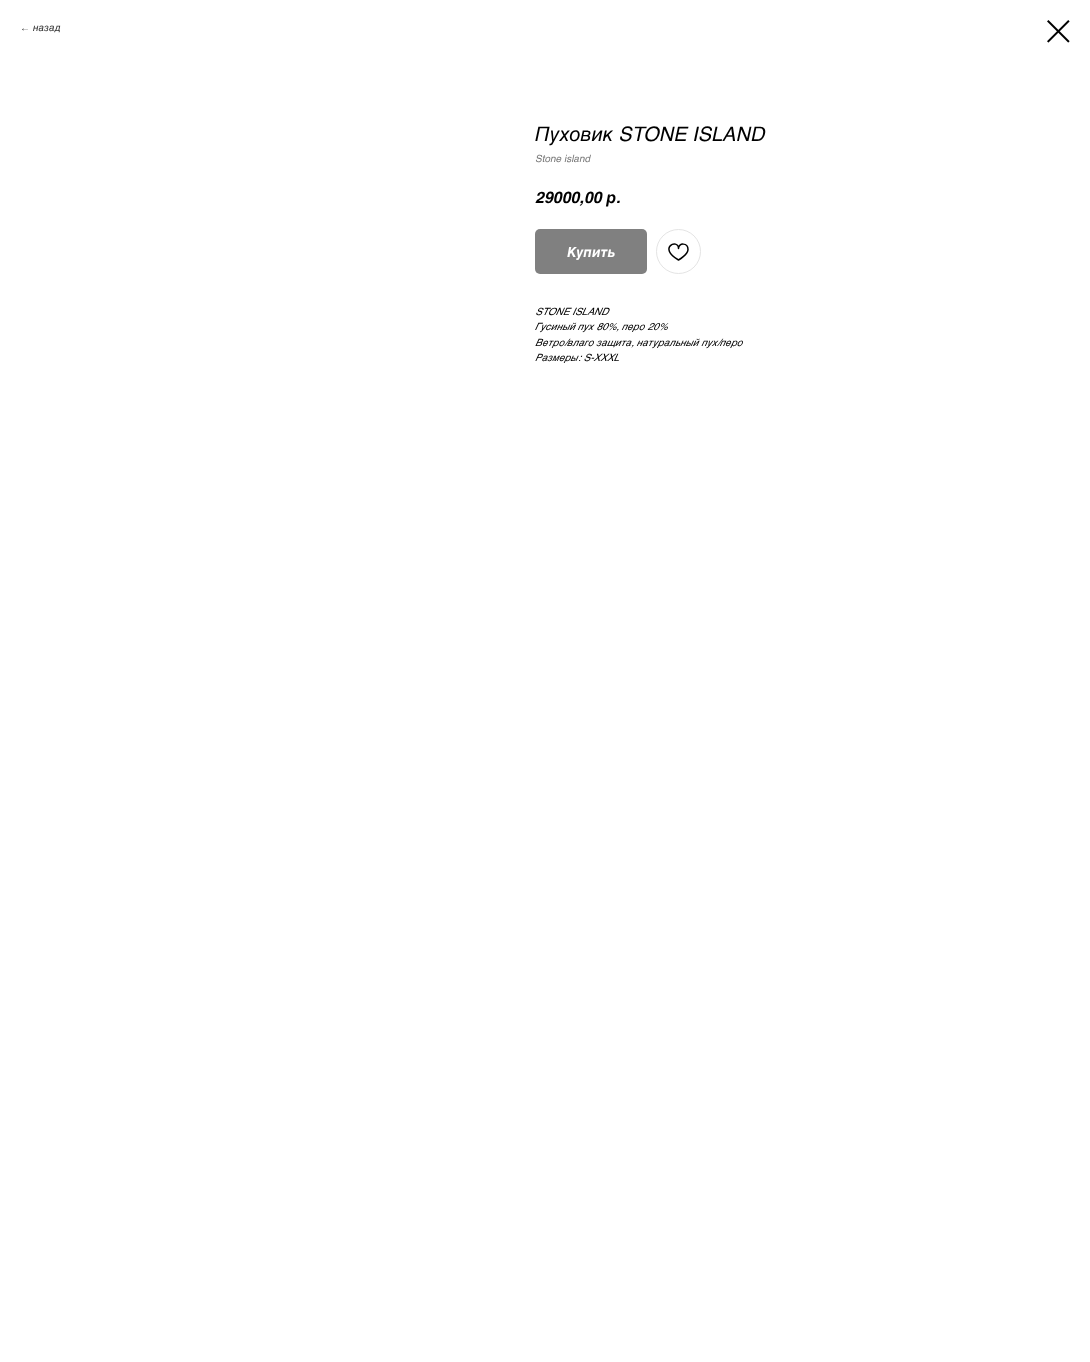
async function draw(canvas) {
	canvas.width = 1090;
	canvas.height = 1362;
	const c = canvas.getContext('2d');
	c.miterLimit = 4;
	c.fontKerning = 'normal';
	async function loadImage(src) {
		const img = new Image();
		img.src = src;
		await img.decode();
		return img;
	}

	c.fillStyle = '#fff';
	c.fillRect(0, 0, 1090, 1362);
	c.font = '10px Liberation Sans';
	c.fillStyle = '#333';
	c.fillText('←', 20, 31);
	c.font = '10px Helvetica';
	c.fillText('назад', 33, 31);
	c.drawImage(await loadImage('img1.png'), 1047, 20, 23, 23);
	c.font = '20px Helvetica';
	c.fillStyle = '#000';
	c.fillText('Пуховик STONE ISLAND', 535, 141);
	c.font = '10px Helvetica';
	c.fillStyle = '#777';
	c.fillText('Stone island', 535, 162);
	c.font = 'bold 16px Helvetica';
	c.fillStyle = '#000';
	c.fillText('29000,00 р.', 535, 203);
	c.fillStyle = '#808080';
	c.beginPath();
	c.roundRect(535, 229, 112, 45, 5);
	c.fill();
	c.font = 'bold 14px Helvetica';
	c.fillStyle = '#fff';
	c.fillText('Купить', 567, 257);
	c.beginPath();
	c.arc(678.5, 251.5, 22, 0, 2 * Math.PI);
	c.strokeStyle = '#e4e4e4';
	c.stroke();
	c.beginPath();
	c.moveTo(688, 249.5);
	c.bezierCurveTo(688, 254.5, 678.5, 260, 678.5, 260);
	c.bezierCurveTo(657, 247.5, 678.5, 238, 678.5, 248.5);
	c.bezierCurveTo(678.5, 242.5, 688, 242.5, 688, 249.5);
	c.closePath();
	c.strokeStyle = '#000';
	c.lineWidth = 1.5;
	c.lineJoin = 'round';
	c.stroke();
	c.font = 'italic 10px Helvetica';
	c.fillStyle = '#000';
	for (const [text, x, y] of [
		['STONE ISLAND', 535, 315],
		['Гусиный пух 80%, перо 20%', 535, 330],
		['Ветро/влаго защита, натуральный пух/перо', 535, 346],
		['Размеры: S-XXXL', 535, 361],
	]) {
		c.fillText(text, x, y);
	}
}

draw(document.querySelector('canvas'));
